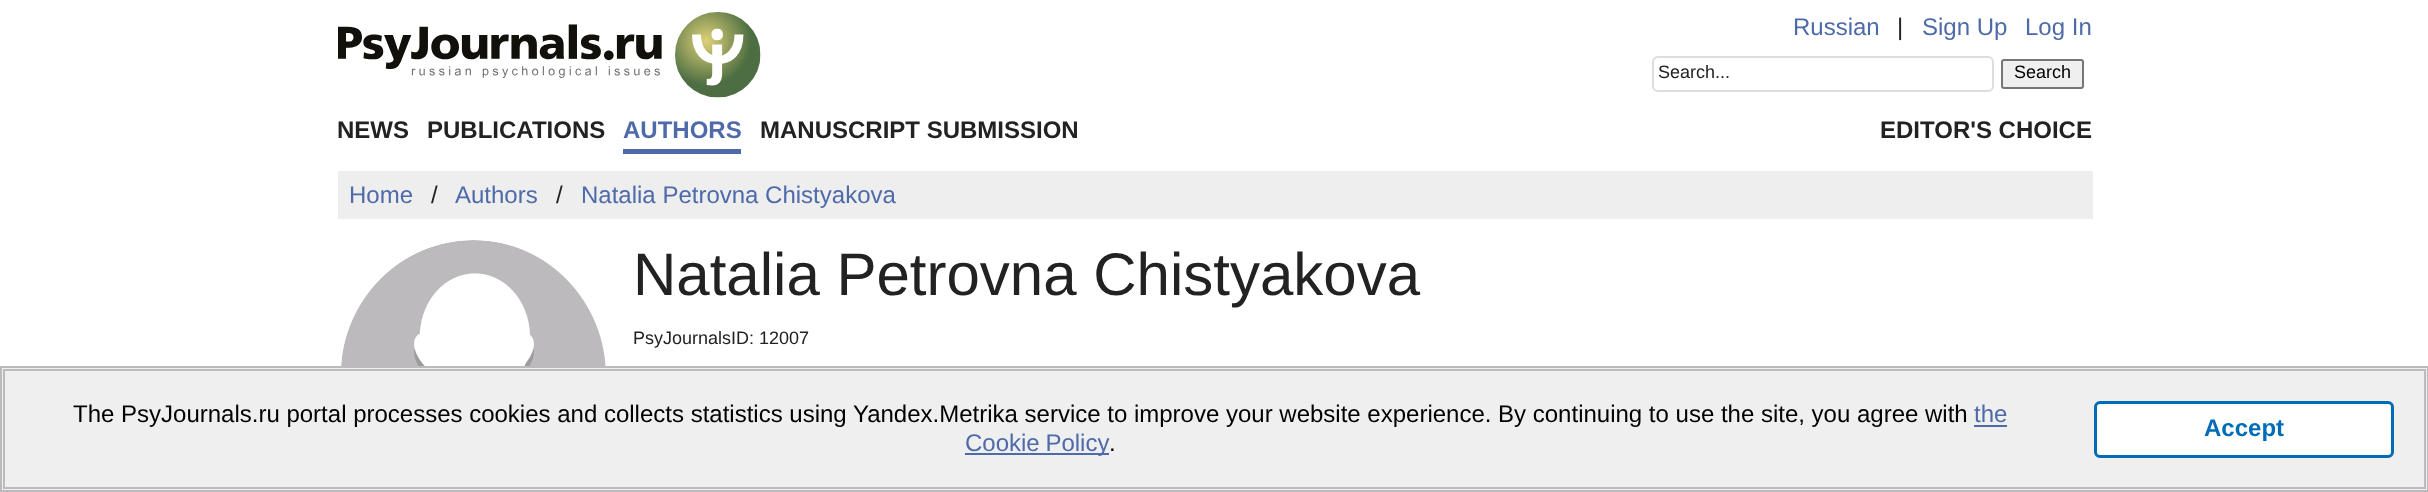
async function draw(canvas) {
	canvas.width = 2428;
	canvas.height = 492;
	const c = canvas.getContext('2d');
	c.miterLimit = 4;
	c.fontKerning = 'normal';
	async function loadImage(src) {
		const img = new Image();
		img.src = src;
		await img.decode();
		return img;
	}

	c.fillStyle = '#fff';
	c.fillRect(0, 0, 2428, 492);
	c.drawImage(await loadImage('img1.png'), 338, 12, 423, 86);
	c.font = '24px Liberation Sans';
	c.fillStyle = '#4e6aa9';
	c.fillText('Russian', 1793, 35);
	c.fillStyle = '#222';
	c.fillText('|', 1897, 35);
	c.fillStyle = '#4e6aa9';
	c.fillText('Sign Up', 1922, 35);
	c.fillText('Log In', 2025, 35);
	c.beginPath();
	c.roundRect(1653, 57, 340, 34, 5);
	c.strokeStyle = '#ddd';
	c.lineWidth = 2;
	c.stroke();
	c.font = '18px Liberation Sans';
	c.fillStyle = '#222';
	c.fillText('Search...', 1658, 78);
	c.fillStyle = '#efefef';
	c.beginPath();
	c.roundRect(2002, 60, 81, 28, 2);
	c.fill();
	c.strokeStyle = '#767676';
	c.stroke();
	c.fillStyle = '#000';
	c.fillText('Search', 2014, 78);
	c.font = 'bold 24px Liberation Sans';
	c.fillStyle = '#222';
	c.fillText('NEWS', 337, 138);
	c.fillText('PUBLICATIONS', 427, 138);
	c.fillStyle = '#4e6aa9';
	c.fillRect(623, 149, 118, 5);
	c.fillText('AUTHORS', 623, 138);
	c.fillStyle = '#222';
	c.fillText('MANUSCRIPT SUBMISSION', 760, 138);
	c.fillText('EDITOR\'S CHOICE', 1880, 138);
	c.fillStyle = '#eee';
	c.fillRect(338, 171, 1755, 48);
	c.font = '24px Liberation Sans';
	c.fillStyle = '#4e6aa9';
	c.fillText('Home', 349, 203);
	c.fillStyle = '#222';
	c.fillText('/', 431, 203);
	c.fillStyle = '#4e6aa9';
	c.fillText('Authors', 455, 203);
	c.fillStyle = '#222';
	c.fillText('/', 556, 203);
	c.fillStyle = '#4e6aa9';
	c.fillText('Natalia Petrovna Chistyakova', 581, 203);
	c.drawImage(await loadImage('img2.png'), 341, 240, 265, 126);
	c.font = '60px Liberation Sans';
	c.fillStyle = '#222';
	c.fillText('Natalia Petrovna Chistyakova', 633, 295);
	c.font = '18px Liberation Sans';
	c.fillText('PsyJournalsID: 12007', 633, 344);
	c.fillStyle = '#efefef';
	c.beginPath();
	c.rect(1, 367, 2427, 124);
	c.fill();
	c.strokeStyle = '#bdbabd';
	c.stroke();
	c.strokeRect(4, 370, 2421, 118);
	c.font = '24px Liberation Sans';
	c.fillStyle = '#000';
	c.fillText('The PsyJournals.ru portal processes cookies and collects statistics using Yandex.Metrika service to improve your website experience. By continuing to use the site, you agree with', 73, 422);
	c.fillStyle = '#4e6aa9';
	c.fillText('the', 1974, 422);
	c.fillRect(1974, 425, 33, 2);
	c.fillRect(965, 453, 144, 2);
	c.wordSpacing = '-1px';
	c.fillText('Cookie Policy', 965, 451);
	c.wordSpacing = '0px';
	c.fillStyle = '#000';
	c.fillText('.', 1109, 451);
	c.fillStyle = '#fff';
	c.beginPath();
	c.roundRect(2095.5, 402.5, 297, 54, 4.5);
	c.fill();
	c.strokeStyle = '#006cb7';
	c.lineWidth = 3;
	c.stroke();
	c.font = 'bold 24px Liberation Sans';
	c.fillStyle = '#006cb7';
	c.fillText('Accept', 2204, 436);
}

draw(document.querySelector('canvas'));
